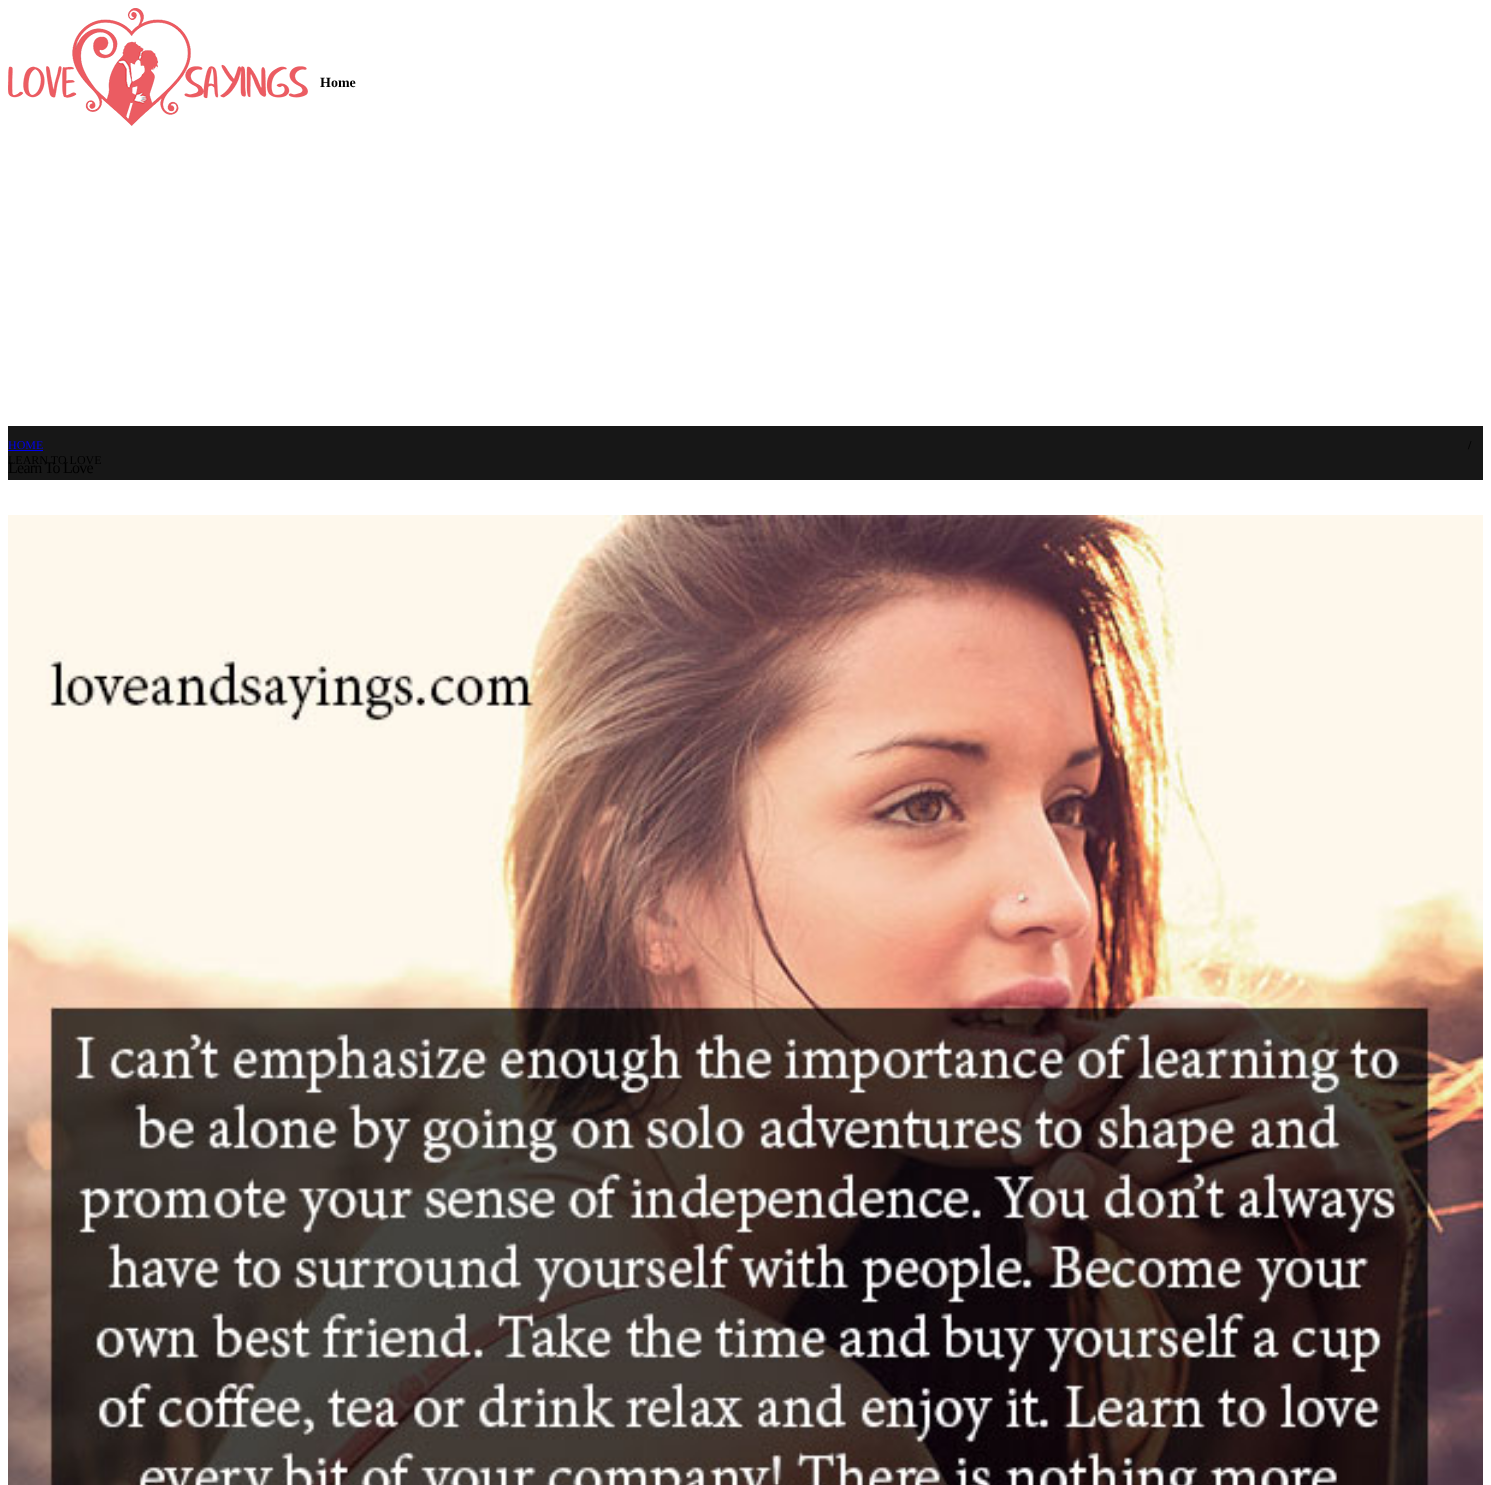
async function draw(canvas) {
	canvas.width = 1491;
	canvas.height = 1485;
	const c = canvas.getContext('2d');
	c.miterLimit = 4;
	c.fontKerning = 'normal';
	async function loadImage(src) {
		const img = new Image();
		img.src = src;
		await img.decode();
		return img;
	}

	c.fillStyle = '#fff';
	c.fillRect(0, 0, 1491, 1485);
	c.drawImage(await loadImage('img1.png'), 8, 8, 300, 118);
	c.font = 'bold 14px Liberation Serif';
	c.fillStyle = '#000';
	c.fillText('Home', 320, 87);
	c.fillStyle = '#171717';
	c.fillRect(8, 426, 1475, 54);
	c.font = '12px Liberation Serif';
	c.fillStyle = '#00e';
	c.fillText('HOME', 8, 449);
	c.fillRect(8, 450, 35, 1);
	c.font = 'bold 12px Liberation Serif';
	c.fillStyle = '#000';
	c.fillText('/', 1468, 449);
	c.font = '12px Liberation Serif';
	c.fillText('LEARN TO LOVE', 8, 464);
	c.letterSpacing = '-0.75px';
	c.font = '16px Liberation Serif';
	c.fillText('Learn To Love', 8, 473);
	c.drawImage(await loadImage('img2.png'), 8, 515, 1475, 970);
}

draw(document.querySelector('canvas'));
